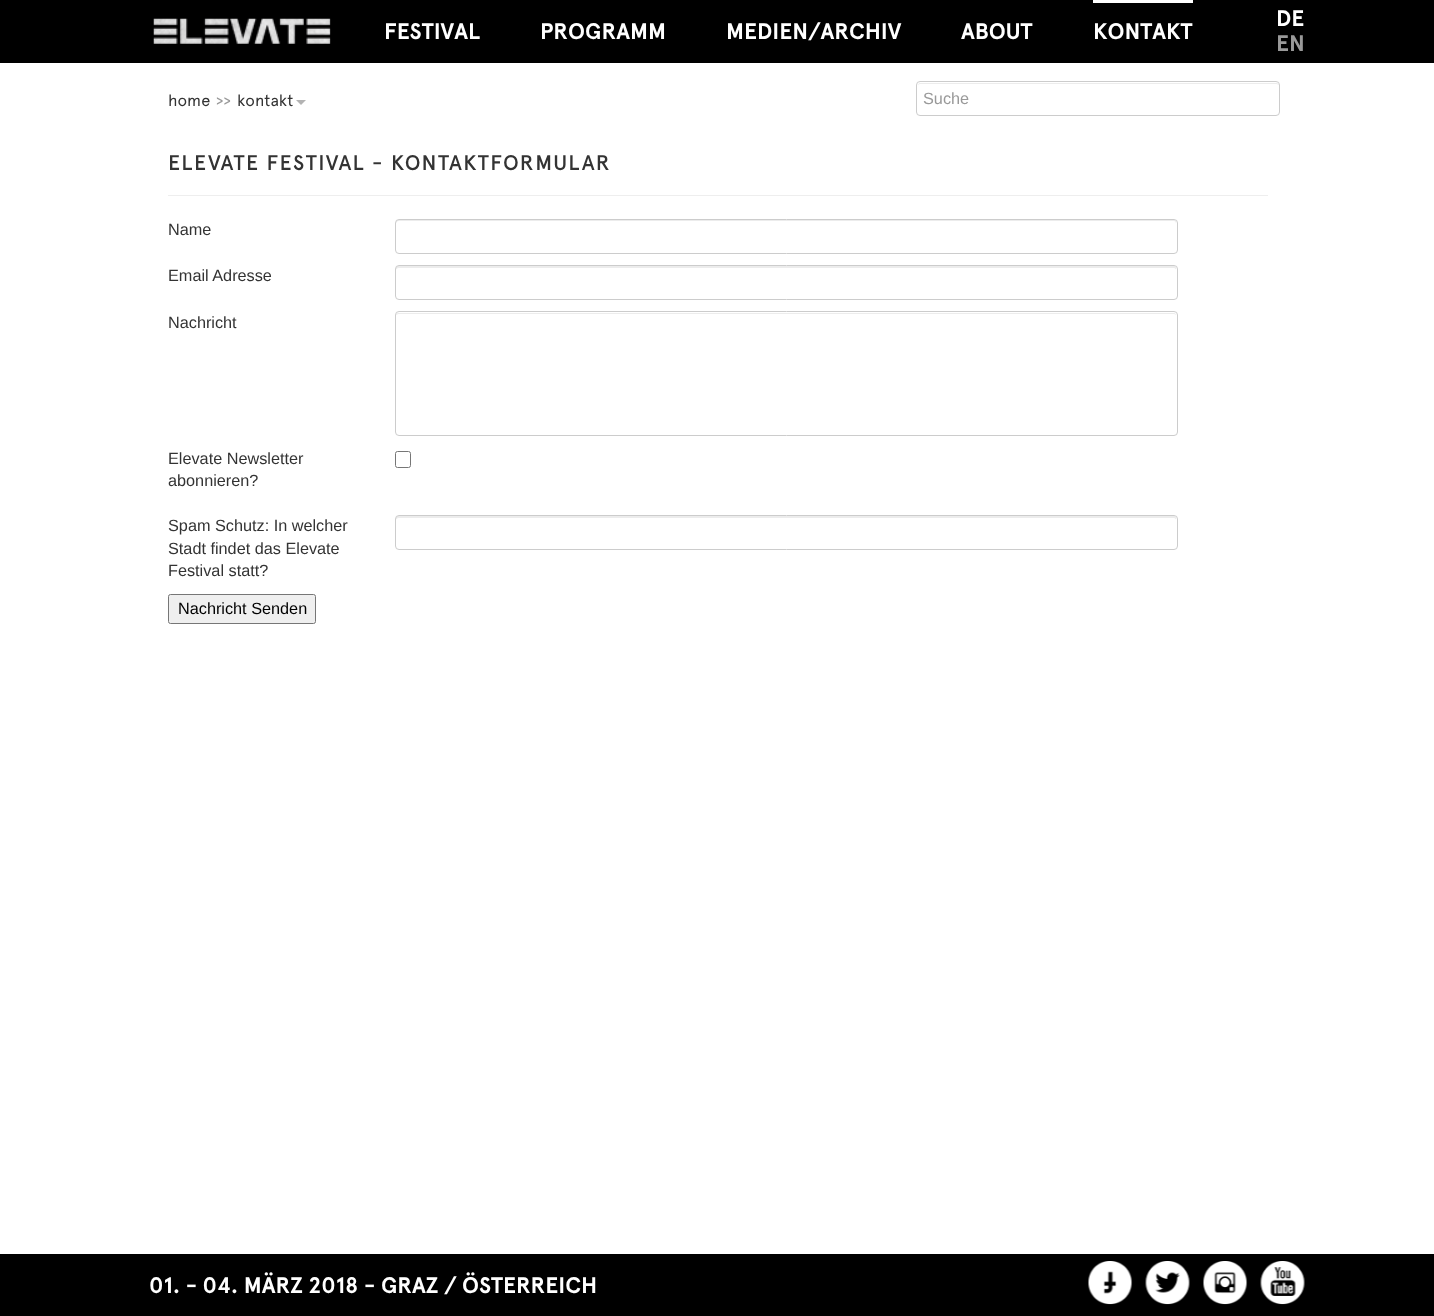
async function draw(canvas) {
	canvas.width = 1434;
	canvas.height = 1316;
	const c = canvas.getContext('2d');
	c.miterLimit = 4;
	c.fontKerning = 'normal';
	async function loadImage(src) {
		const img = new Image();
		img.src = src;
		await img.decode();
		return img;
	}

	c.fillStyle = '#fff';
	c.fillRect(0, 0, 1434, 1316);
	c.fillStyle = '#000';
	c.fillRect(0, 0, 1434, 63);
	c.drawImage(await loadImage('img1.png'), 153, 18, 178, 26);
	c.font = 'bold 22.5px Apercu';
	c.fillStyle = '#fff';
	for (const [text, x, y] of [
		['FESTIVAL', 384, 39],
		['PROGRAMM', 540, 39],
		['MEDIEN/ARCHIV', 726, 39],
		['ABOUT', 961, 39],
	]) {
		c.fillText(text, x, y);
	}
	c.fillRect(1093, 0, 100, 3);
	c.fillText('KONTAKT', 1093, 39);
	c.fillText('DE', 1276, 26);
	c.fillStyle = '#999';
	c.fillText('EN', 1276, 51);
	c.font = '16.25px Apercu';
	c.fillStyle = '#333';
	c.fillText('home', 168, 106);
	c.fillStyle = '#999';
	c.fillText('>>', 216, 106);
	c.fillStyle = '#333';
	c.fillText('kontakt', 237, 106);
	c.fillStyle = '#b3b3b3';
	c.beginPath();
	c.moveTo(296, 100);
	c.lineTo(306, 100);
	c.lineTo(301, 105);
	c.closePath();
	c.fill();
	c.fillStyle = '#ececec';
	c.beginPath();
	c.moveTo(920, 84);
	c.lineTo(1276, 84);
	c.bezierCurveTo(1278, 84, 1279, 85, 1279, 86);
	c.bezierCurveTo(1279, 84, 1278, 83, 1276, 83);
	c.lineTo(920, 83);
	c.bezierCurveTo(919, 83, 918, 84, 918, 86);
	c.bezierCurveTo(918, 85, 919, 84, 920, 84);
	c.closePath();
	c.fill();
	c.beginPath();
	c.roundRect(916.5, 81.5, 363, 34, 3.5);
	c.strokeStyle = '#ccc';
	c.stroke();
	c.font = '16.25px Liberation Sans';
	c.fillStyle = '#999';
	c.fillText('Suche', 923, 104);
	c.fillStyle = '#eee';
	c.fillRect(168, 195, 1100, 1);
	c.letterSpacing = '1.5px';
	c.font = '500 21.25px Apercu';
	c.fillStyle = '#333';
	c.fillText('ELEVATE FESTIVAL - KONTAKTFORMULAR', 168, 170);
	c.letterSpacing = '0px';
	c.font = '16.25px Liberation Sans';
	c.fillText('Name', 168, 235);
	c.fillStyle = '#ececec';
	c.beginPath();
	c.moveTo(399, 221);
	c.lineTo(1174, 221);
	c.bezierCurveTo(1175, 221, 1176, 222, 1176, 224);
	c.lineTo(1176, 222);
	c.bezierCurveTo(1176, 221, 1175, 220, 1174, 220);
	c.lineTo(398, 220);
	c.bezierCurveTo(397, 220, 396, 221, 396, 222);
	c.lineTo(396, 224);
	c.bezierCurveTo(396, 222, 397, 221, 399, 221);
	c.closePath();
	c.fill();
	c.beginPath();
	c.roundRect(395.5, 219.5, 782, 34, 3.5);
	c.stroke();
	c.fillStyle = '#333';
	c.fillText('Email Adresse', 168, 281);
	c.fillStyle = '#ececec';
	c.beginPath();
	c.moveTo(399, 268);
	c.lineTo(1174, 268);
	c.bezierCurveTo(1175, 268, 1176, 269, 1176, 270);
	c.lineTo(1176, 268);
	c.bezierCurveTo(1176, 267, 1175, 266, 1174, 266);
	c.lineTo(398, 266);
	c.bezierCurveTo(397, 266, 396, 267, 396, 268);
	c.lineTo(396, 270);
	c.bezierCurveTo(396, 269, 397, 268, 399, 268);
	c.closePath();
	c.fill();
	c.beginPath();
	c.roundRect(395.5, 265.5, 782, 34, 3.5);
	c.stroke();
	c.fillStyle = '#333';
	c.fillText('Nachricht', 168, 328);
	c.fillStyle = '#ececec';
	c.beginPath();
	c.moveTo(399, 314);
	c.lineTo(1174, 314);
	c.bezierCurveTo(1175, 314, 1176, 315, 1176, 316);
	c.bezierCurveTo(1176, 314, 1175, 313, 1174, 313);
	c.lineTo(398, 313);
	c.bezierCurveTo(397, 313, 396, 314, 396, 316);
	c.bezierCurveTo(396, 315, 397, 314, 399, 314);
	c.closePath();
	c.fill();
	c.beginPath();
	c.roundRect(395.5, 311.5, 782, 124, 3.5);
	c.stroke();
	c.fillStyle = '#333';
	c.fillText('Elevate Newsletter', 168, 464);
	c.fillText('abonnieren?', 168, 486);
	c.beginPath();
	c.roundRect(395.5, 451.5, 15, 16, 2);
	c.strokeStyle = '#767676';
	c.stroke();
	for (const [text, x, y] of [
		['Spam Schutz: In welcher', 168, 531],
		['Stadt findet das Elevate', 168, 554],
		['Festival statt?', 168, 576],
	]) {
		c.fillText(text, x, y);
	}
	c.fillStyle = '#ececec';
	c.beginPath();
	c.moveTo(399, 518);
	c.lineTo(1174, 518);
	c.bezierCurveTo(1175, 518, 1176, 519, 1176, 520);
	c.lineTo(1176, 518);
	c.bezierCurveTo(1176, 517, 1175, 516, 1174, 516);
	c.lineTo(398, 516);
	c.bezierCurveTo(397, 516, 396, 517, 396, 518);
	c.lineTo(396, 520);
	c.bezierCurveTo(396, 519, 397, 518, 399, 518);
	c.closePath();
	c.fill();
	c.beginPath();
	c.roundRect(395.5, 515.5, 782, 34, 3.5);
	c.strokeStyle = '#ccc';
	c.stroke();
	c.fillStyle = '#efefef';
	c.beginPath();
	c.roundRect(168.5, 594.5, 147, 29, 2);
	c.fill();
	c.strokeStyle = '#767676';
	c.stroke();
	c.fillStyle = '#000';
	c.fillText('Nachricht Senden', 178, 614);
	c.fillRect(0, 1254, 1434, 62);
	c.font = 'bold 22.5px Apercu';
	c.fillStyle = '#fff';
	c.fillText('01. - 04. MÄRZ 2018 - GRAZ / ÖSTERREICH', 149, 1293);
	c.drawImage(await loadImage('img2.png'), 1088, 1261, 45, 44);
	c.drawImage(await loadImage('img3.png'), 1145, 1261, 45, 44);
	c.drawImage(await loadImage('img4.png'), 1203, 1261, 45, 44);
	c.drawImage(await loadImage('img5.png'), 1260, 1261, 45, 44);
}

draw(document.querySelector('canvas'));
